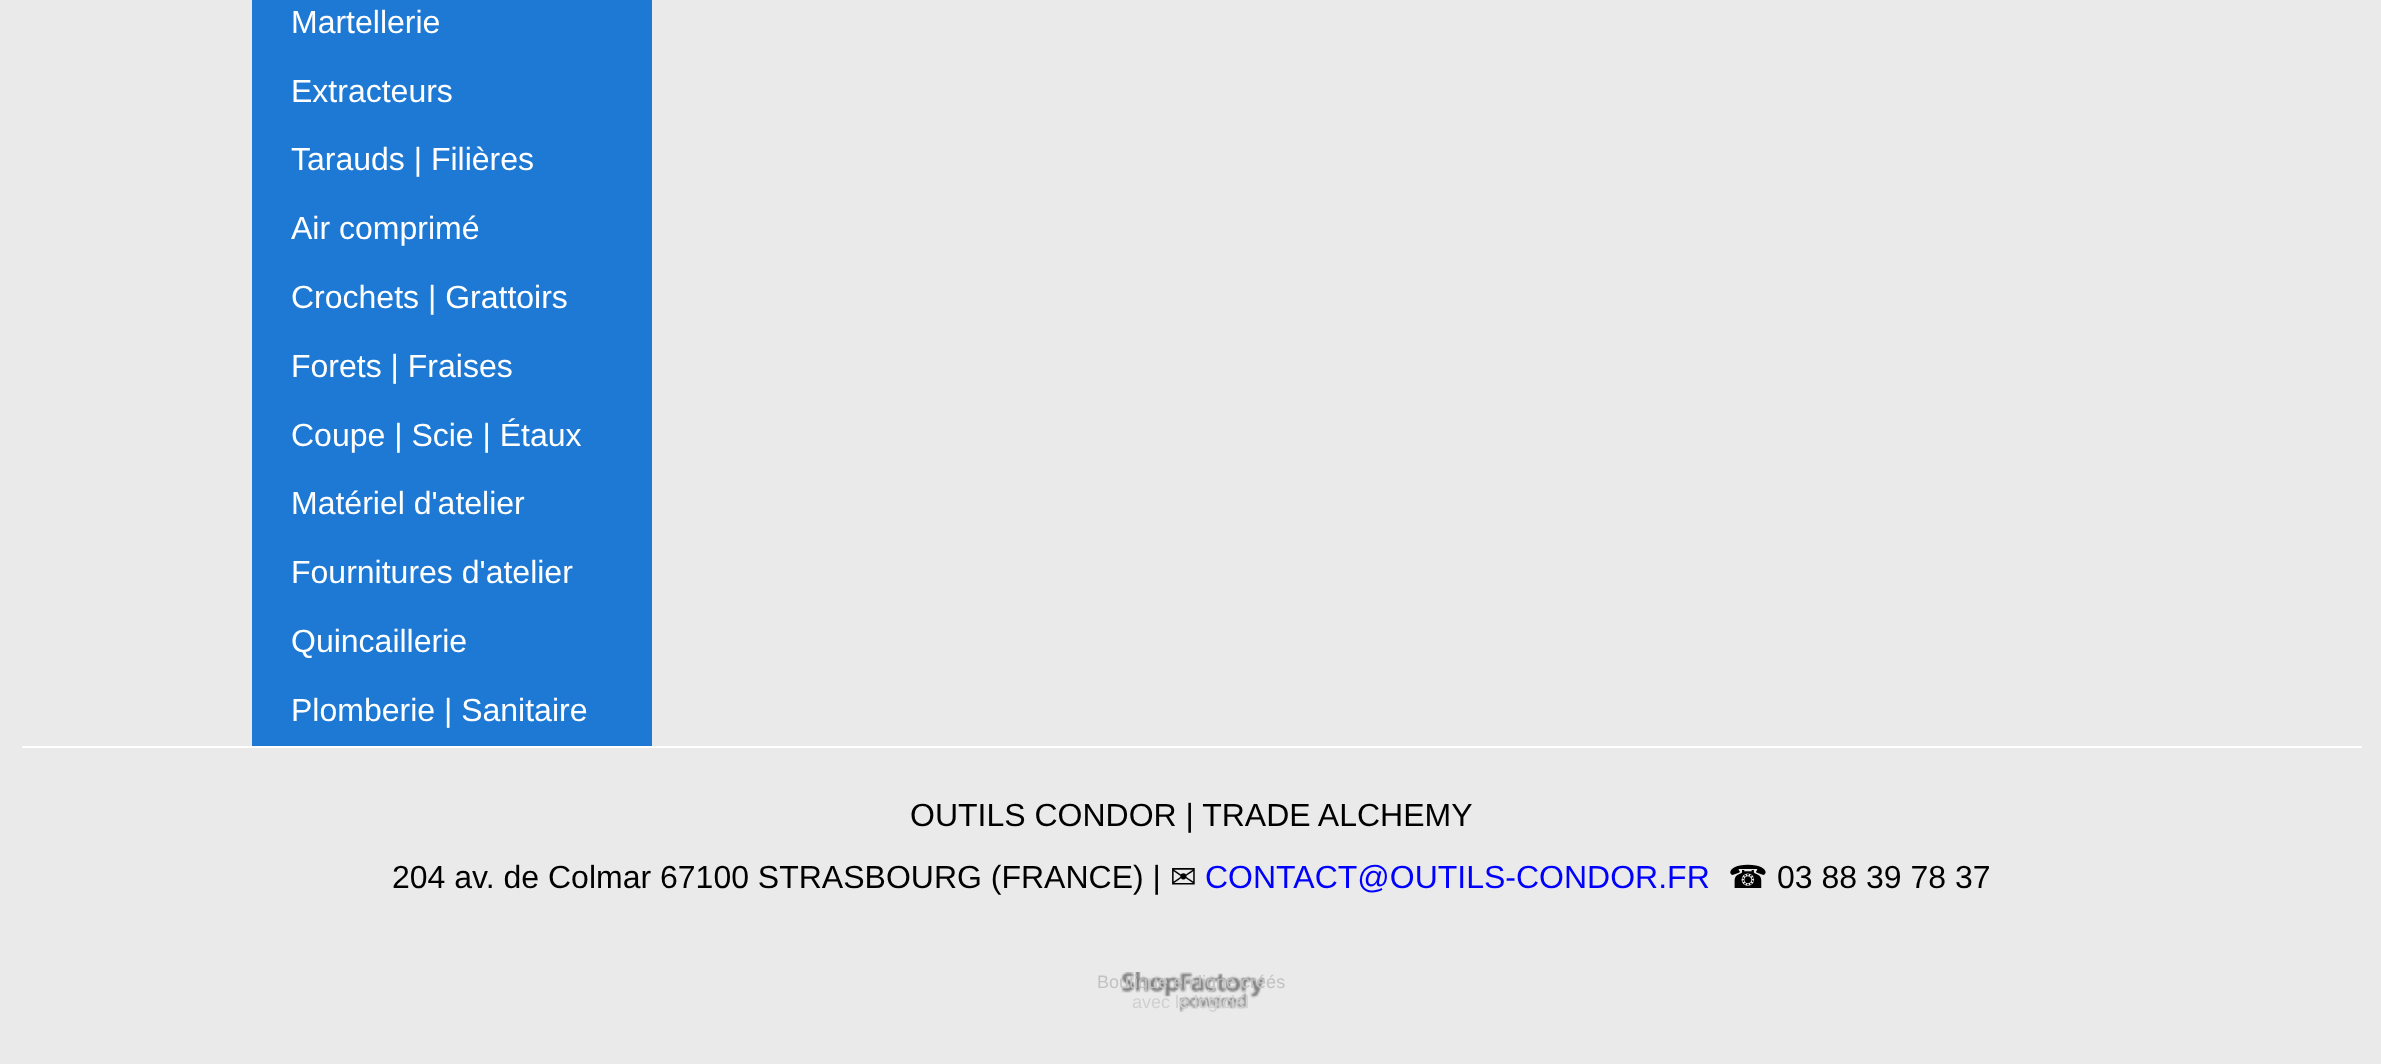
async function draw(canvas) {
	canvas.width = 2381;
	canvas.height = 1064;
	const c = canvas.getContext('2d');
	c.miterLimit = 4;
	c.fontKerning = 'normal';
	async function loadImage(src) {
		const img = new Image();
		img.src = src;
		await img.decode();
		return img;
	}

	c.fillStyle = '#eaeaea';
	c.fillRect(0, 0, 2381, 1064);
	c.fillStyle = '#1e79d4';
	c.fillRect(252, 0, 400, 746);
	c.font = '32px Liberation Sans';
	c.fillStyle = '#fff';
	for (const [text, x, y] of [
		['Martellerie', 291, 33],
		['Extracteurs', 291, 102],
		['Tarauds | Filières', 291, 170],
		['Air comprimé', 291, 239],
		['Crochets | Grattoirs', 291, 308],
		['Forets | Fraises', 291, 377],
		['Coupe | Scie | Étaux', 291, 446],
		['Matériel d\'atelier', 291, 514],
		['Fournitures d\'atelier', 291, 583],
		['Quincaillerie', 291, 652],
		['Plomberie | Sanitaire', 291, 721],
	]) {
		c.fillText(text, x, y);
	}
	c.fillRect(22, 746, 2340, 2);
	c.fillStyle = '#000';
	c.fillText('OUTILS CONDOR | TRADE ALCHEMY', 910, 826);
	c.fillText('204 av. de Colmar 67100 STRASBOURG (FRANCE) |', 392, 888);
	c.font = '32px DejaVu Sans';
	c.fillText('✉', 1170, 888);
	c.font = '32px Liberation Sans';
	c.fillStyle = '#00f';
	c.fillText('CONTACT@OUTILS-CONDOR.FR', 1205, 888);
	c.font = '32px DejaVu Sans';
	c.fillStyle = '#000';
	c.fillText('☎', 1728, 888);
	c.font = '32px Liberation Sans';
	c.fillText('03 88 39 78 37', 1777, 888);
	c.drawImage(await loadImage('img1.png'), 1121, 972, 144, 40);
	c.font = '18px Liberation Sans';
	c.fillStyle = '#c2c2c2';
	c.fillText('Boutique en ligne créés', 1097, 988);
	c.fillStyle = '#d0d0d0';
	c.fillText('avec le logiciel', 1132, 1008);
}

draw(document.querySelector('canvas'));
